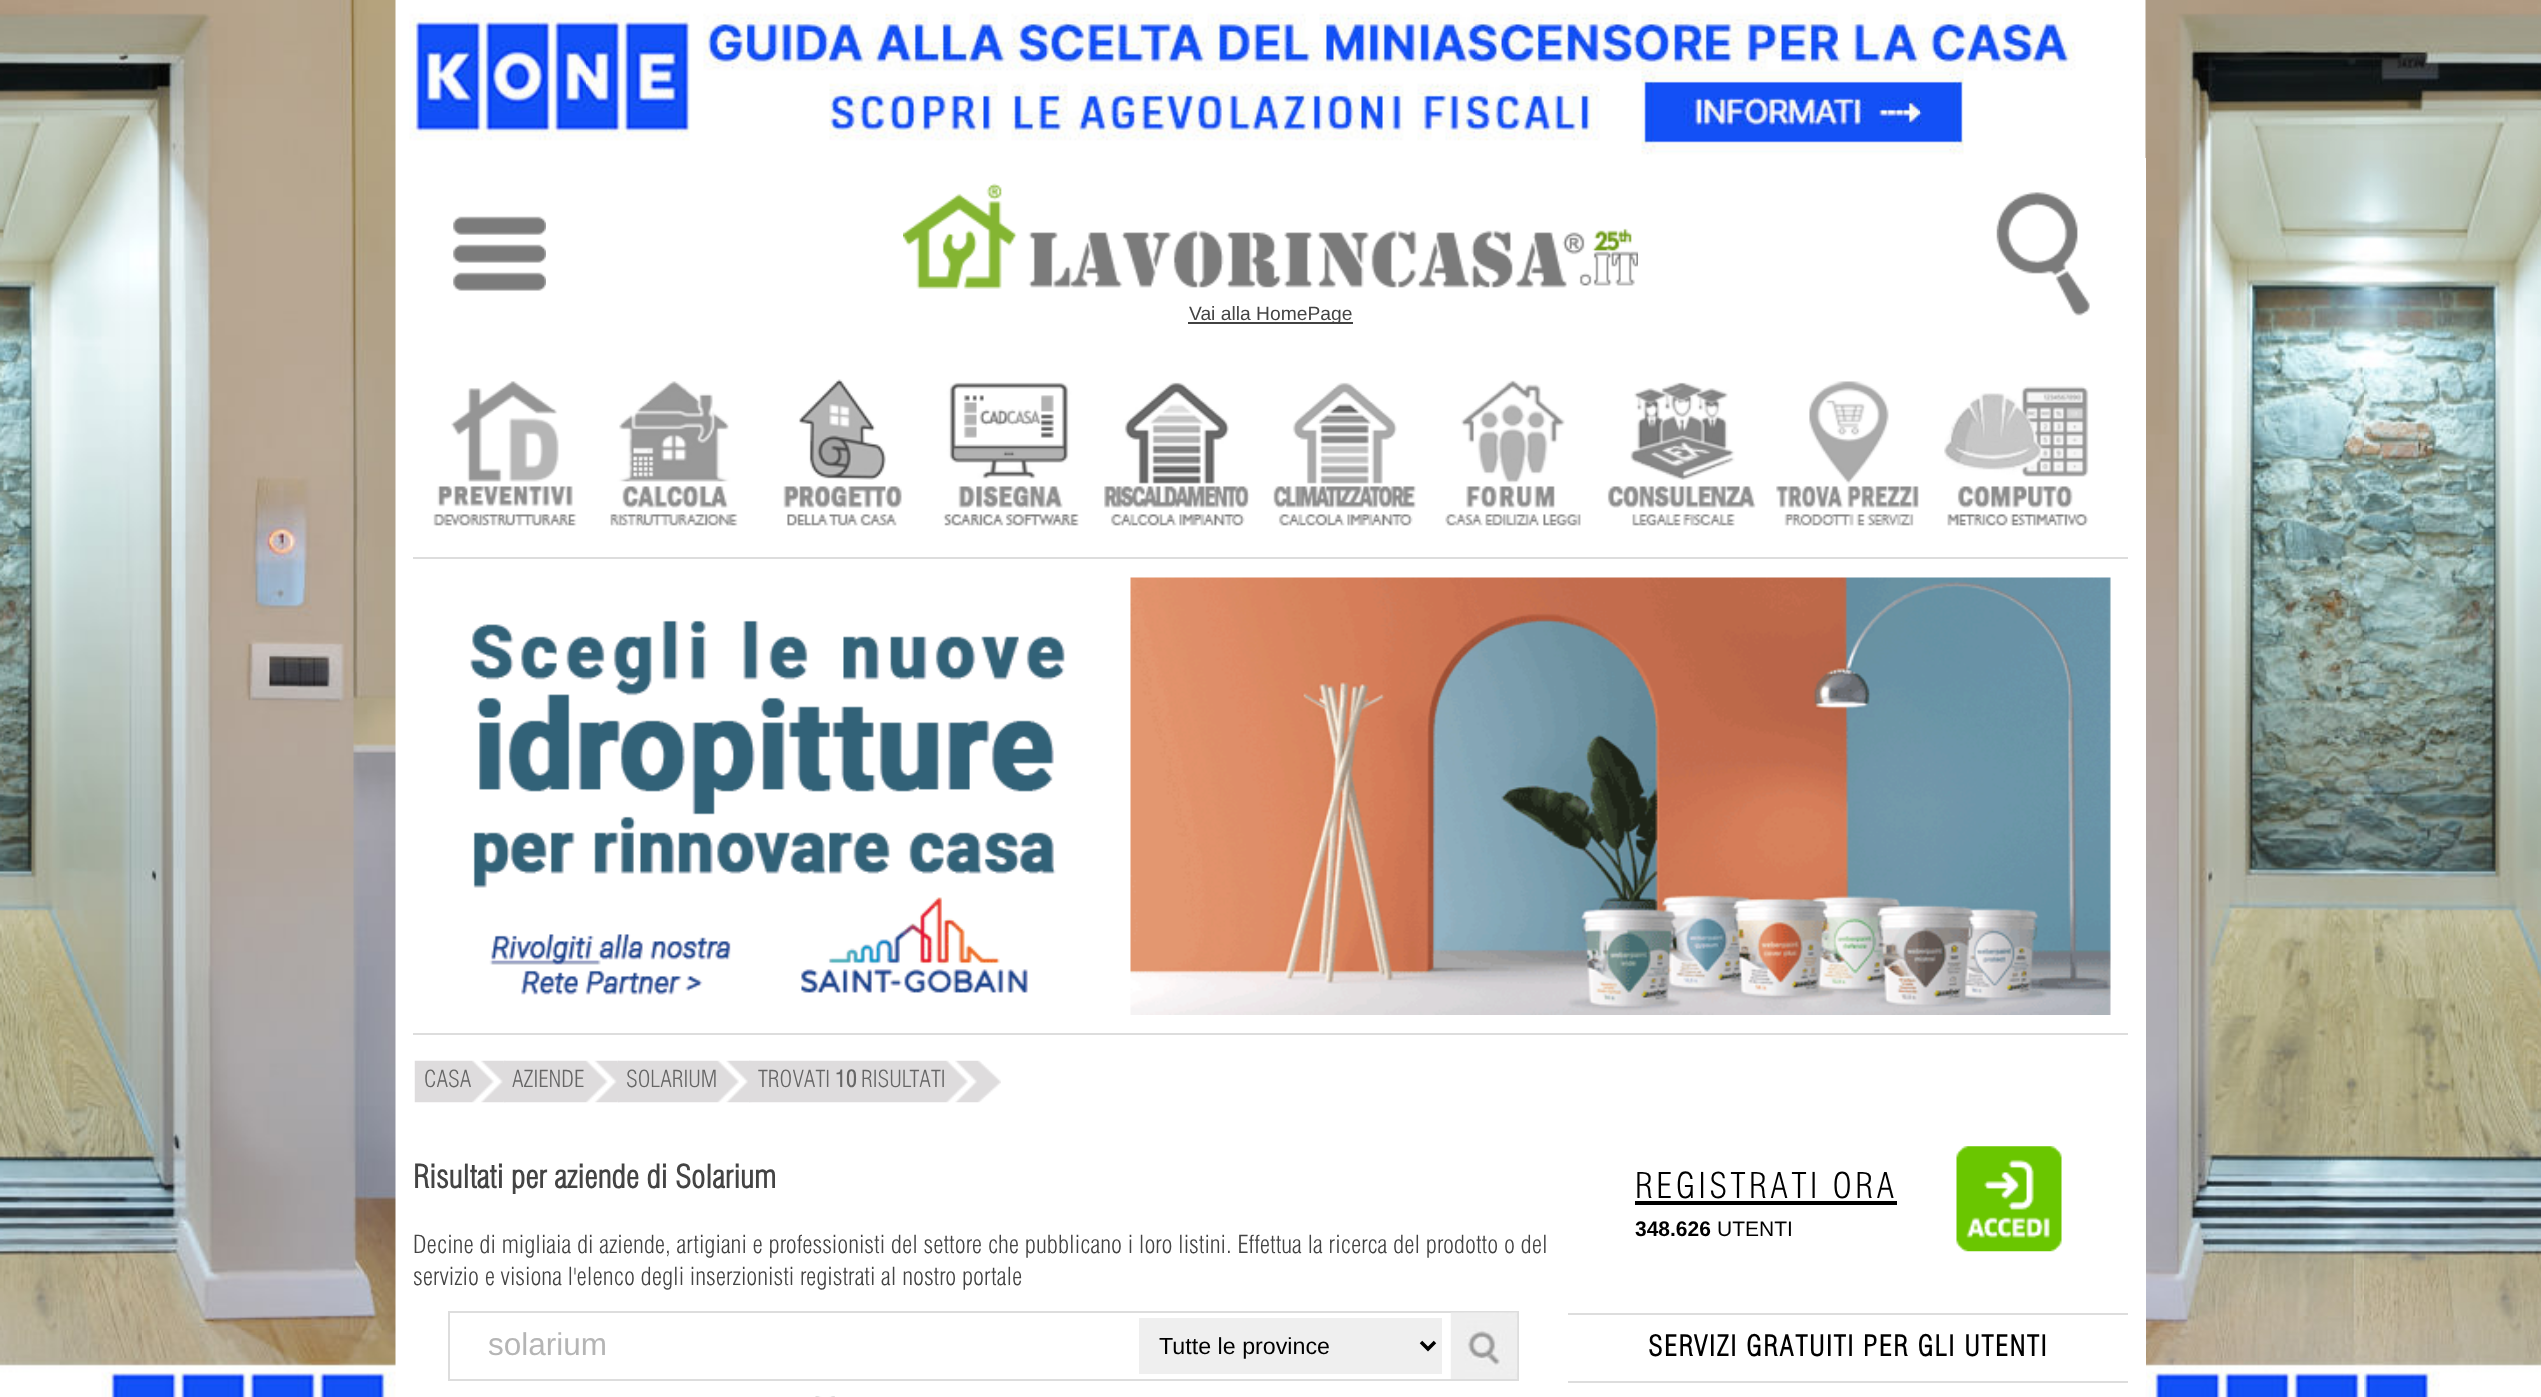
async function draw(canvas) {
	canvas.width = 2541;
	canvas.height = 1397;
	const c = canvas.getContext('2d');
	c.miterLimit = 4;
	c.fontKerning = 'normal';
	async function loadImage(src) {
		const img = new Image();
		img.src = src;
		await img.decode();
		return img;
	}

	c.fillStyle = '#fff';
	c.fillRect(0, 0, 2541, 1397);
	c.drawImage(await loadImage('img1.png'), 0, 0, 2541, 1397);
	c.fillRect(2145, 158, 1, 1229);
	c.drawImage(await loadImage('img2.png'), 453, 216, 93, 75);
	c.drawImage(await loadImage('img3.png'), 1996, 192, 94, 124);
	c.drawImage(await loadImage('img4.png'), 903, 183, 735, 106);
	c.fillStyle = '#424242';
	c.fillRect(1188, 322, 165, 2);
	c.font = '19.25px Liberation Sans';
	c.fillStyle = '#444';
	c.fillText('Vai alla HomePage', 1189, 320);
	c.drawImage(await loadImage('img5.png'), 433, 381, 144, 145);
	c.drawImage(await loadImage('img6.png'), 610, 381, 128, 145);
	c.drawImage(await loadImage('img7.png'), 783, 379, 119, 147);
	c.drawImage(await loadImage('img8.png'), 943, 382, 136, 144);
	c.drawImage(await loadImage('img9.png'), 1104, 382, 146, 144);
	c.drawImage(await loadImage('img10.png'), 1273, 382, 143, 144);
	c.drawImage(await loadImage('img11.png'), 1445, 380, 136, 146);
	c.drawImage(await loadImage('img12.png'), 1607, 382, 149, 144);
	c.drawImage(await loadImage('img13.png'), 1776, 381, 143, 145);
	c.drawImage(await loadImage('img14.png'), 1944, 386, 145, 140);
	c.fillStyle = '#ddd';
	c.fillRect(413, 557, 1715, 2);
	c.drawImage(await loadImage('img15.png'), 470, 577, 1641, 438);
	c.fillRect(413, 1033, 1715, 2);
	c.drawImage(await loadImage('img16.png'), 414, 1060, 92, 43);
	c.font = '300 23px "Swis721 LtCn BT"';
	c.fillStyle = '#666';
	c.fillText('CASA', 424, 1087);
	c.drawImage(await loadImage('img17.png'), 504, 1060, 116, 43);
	c.fillText('AZIENDE', 512, 1087);
	c.drawImage(await loadImage('img18.png'), 618, 1060, 134, 43);
	c.fillText('SOLARIUM', 626, 1087);
	c.drawImage(await loadImage('img19.png'), 749, 1060, 252, 43);
	c.fillText('TROVATI', 758, 1087);
	c.font = 'bold 23px "Swis721 LtCn BT"';
	c.fillText('10', 835, 1087);
	c.font = '300 23px "Swis721 LtCn BT"';
	c.fillText('RISULTATI', 861, 1087);
	c.font = 'bold 31.5px "Swis721 LtCn BT"';
	c.fillStyle = '#444';
	c.fillText('Risultati per aziende di Solarium', 413, 1188);
	c.font = '300 24.5px "Swis721 LtCn BT"';
	c.fillText('Decine di migliaia di aziende, artigiani e professionisti del settore che pubblicano i loro listini. Effettua la ricerca del prodotto o del', 413, 1253);
	c.fillText('servizio e visiona l\'elenco degli inserzionisti registrati al nostro portale', 413, 1285);
	c.strokeStyle = '#ddd';
	c.lineWidth = 2;
	c.strokeRect(449, 1312, 1069, 68);
	c.font = '31.5px Liberation Sans';
	c.fillStyle = '#b5b5b5';
	c.fillText('solarium', 488, 1355);
	c.fillStyle = '#efefef';
	c.fillRect(1139, 1318, 303, 56);
	c.beginPath();
	c.moveTo(1421, 1342);
	c.lineTo(1428, 1349);
	c.lineTo(1435, 1342);
	c.strokeStyle = '#000';
	c.lineWidth = 3.5;
	c.stroke();
	c.font = '23.25px Liberation Sans';
	c.fillStyle = '#000';
	c.fillText('Tutte le province', 1159, 1354);
	c.drawImage(await loadImage('img20.png'), 1450, 1312, 68, 67);
	c.drawImage(await loadImage('img21.png'), 815, 1396, 20, 1);
	c.letterSpacing = '3.5px';
	c.font = '300 35px "Swis721 LtCn BT"';
	c.fillText('REGISTRATI ORA', 1635, 1198);
	c.fillRect(1635, 1201, 262, 4);
	c.letterSpacing = '0px';
	c.font = 'bold 21px Liberation Sans';
	c.fillText('348.626', 1635, 1236);
	c.font = '21px Liberation Sans';
	c.fillText('UTENTI', 1717, 1236);
	c.drawImage(await loadImage('img22.png'), 1956, 1146, 106, 106);
	c.fillStyle = '#ddd';
	c.fillRect(1568, 1313, 560, 2);
	c.letterSpacing = '1.75px';
	c.font = 'bold 28px "Swis721 LtCn BT"';
	c.fillStyle = '#000';
	c.fillText('SERVIZI GRATUITI PER GLI UTENTI', 1648, 1356);
	c.fillStyle = '#ddd';
	c.fillRect(1568, 1381, 560, 2);
}

draw(document.querySelector('canvas'));
